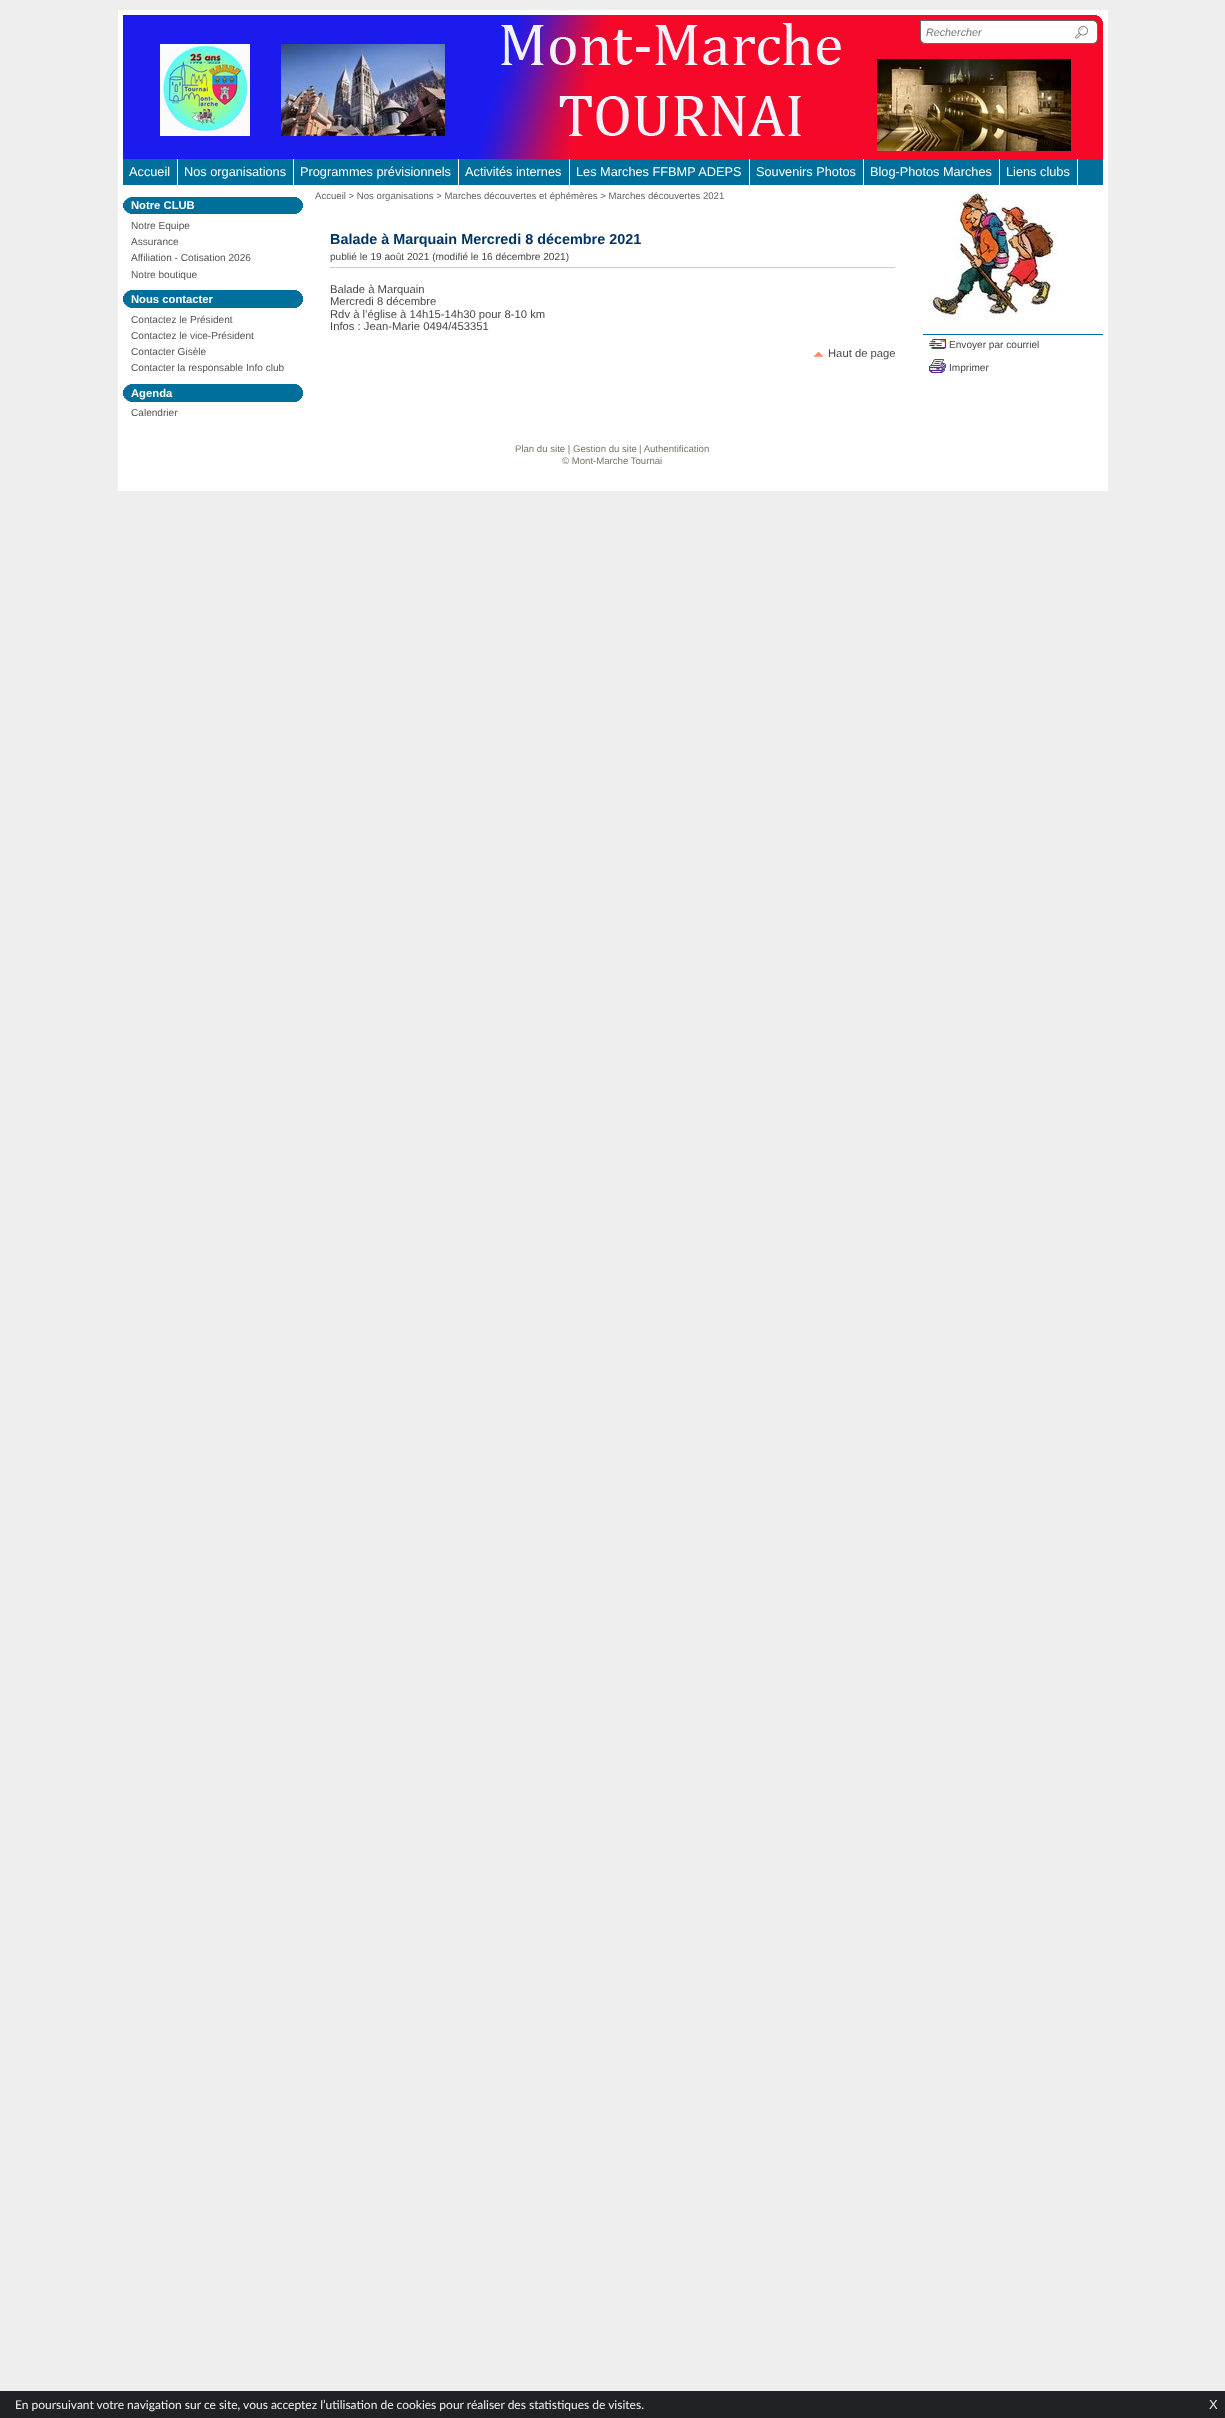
async function draw(canvas) {
	canvas.width = 1225;
	canvas.height = 2418;
	const c = canvas.getContext('2d');
	c.miterLimit = 4;
	c.fontKerning = 'normal';
	async function loadImage(src) {
		const img = new Image();
		img.src = src;
		await img.decode();
		return img;
	}

	c.fillStyle = '#eee';
	c.fillRect(0, 0, 1225, 2418);
	c.fillStyle = '#fff';
	c.fillRect(118, 10, 990, 481);
	c.drawImage(await loadImage('img1.png'), 123, 15, 980, 144);
	c.drawImage(await loadImage('img2.png'), 1097, 15, 6, 6);
	c.beginPath();
	c.roundRect(921, 21, 151, 22, [0, 0, 0, 4]);
	c.fill();
	c.fillStyle = '#6a6a6a';
	c.beginPath();
	c.moveTo(920, 20);
	c.lineTo(1072, 20);
	c.lineTo(1072, 44);
	c.lineTo(925, 44);
	c.bezierCurveTo(922, 44, 920, 42, 920, 39);
	c.closePath();
	c.moveTo(921, 21);
	c.lineTo(1072, 21);
	c.lineTo(1072, 43);
	c.lineTo(925, 43);
	c.bezierCurveTo(923, 43, 921, 41, 921, 39);
	c.closePath();
	c.fill('evenodd');
	c.font = 'italic 10.75px Liberation Sans';
	c.fillStyle = '#757575';
	c.fillText('Rechercher', 926, 36);
	c.fillStyle = '#fff';
	c.beginPath();
	c.roundRect(1072, 21, 25, 22, [0, 4, 4, 0]);
	c.fill();
	c.drawImage(await loadImage('img3.png'), 1075, 26, 13, 13);
	c.fillStyle = '#6a6a6a';
	c.beginPath();
	c.moveTo(1072, 20);
	c.lineTo(1093, 20);
	c.bezierCurveTo(1096, 20, 1098, 22, 1098, 25);
	c.lineTo(1098, 39);
	c.bezierCurveTo(1098, 42, 1096, 44, 1093, 44);
	c.lineTo(1072, 44);
	c.closePath();
	c.moveTo(1072, 21);
	c.lineTo(1093, 21);
	c.bezierCurveTo(1095, 21, 1097, 23, 1097, 25);
	c.lineTo(1097, 39);
	c.bezierCurveTo(1097, 41, 1095, 43, 1093, 43);
	c.lineTo(1072, 43);
	c.closePath();
	c.fill('evenodd');
	c.fillStyle = '#006f9b';
	c.fillRect(123, 159, 980, 26);
	c.fillStyle = '#fff';
	c.fillRect(177, 159, 1, 26);
	c.font = '12.75px Liberation Sans';
	c.fillText('Accueil', 129, 176);
	c.fillRect(293, 159, 1, 26);
	c.fillText('Nos organisations', 184, 176);
	c.fillRect(458, 159, 1, 26);
	c.fillText('Programmes prévisionnels', 300, 176);
	c.fillRect(569, 159, 1, 26);
	c.fillText('Activités internes', 465, 176);
	c.fillRect(749, 159, 1, 26);
	c.fillText('Les Marches FFBMP ADEPS', 576, 176);
	c.fillRect(863, 159, 1, 26);
	c.fillText('Souvenirs Photos', 756, 176);
	c.fillRect(999, 159, 1, 26);
	c.fillText('Blog-Photos Marches', 870, 176);
	c.fillRect(1077, 159, 1, 26);
	c.fillText('Liens clubs', 1006, 176);
	c.fillStyle = '#006f9b';
	c.fillRect(123, 197, 180, 17);
	c.drawImage(await loadImage('img4.png'), 123, 208, 7, 6);
	c.drawImage(await loadImage('img5.png'), 297, 208, 6, 6);
	c.drawImage(await loadImage('img6.png'), 123, 197, 7, 6);
	c.drawImage(await loadImage('img7.png'), 297, 197, 6, 6);
	c.font = 'bold 11.25px Liberation Sans';
	c.fillStyle = '#fff';
	c.fillText('Notre CLUB', 131, 209);
	c.font = '10.1px Liberation Sans';
	c.fillStyle = '#555';
	for (const [text, x, y] of [
		['Notre Equipe', 131, 229],
		['Assurance', 131, 245],
		['Affiliation - Cotisation 2026', 131, 261],
		['Notre boutique', 131, 278],
	]) {
		c.fillText(text, x, y);
	}
	c.fillStyle = '#006f9b';
	c.fillRect(123, 290, 180, 18);
	c.drawImage(await loadImage('img4.png'), 123, 302, 7, 6);
	c.drawImage(await loadImage('img5.png'), 297, 302, 6, 6);
	c.drawImage(await loadImage('img6.png'), 123, 290, 7, 6);
	c.drawImage(await loadImage('img7.png'), 297, 290, 6, 6);
	c.font = 'bold 11.25px Liberation Sans';
	c.fillStyle = '#fff';
	c.fillText('Nous contacter', 131, 303);
	c.font = '10.1px Liberation Sans';
	c.fillStyle = '#555';
	for (const [text, x, y] of [
		['Contactez le Président', 131, 323],
		['Contactez le vice-Président', 131, 339],
		['Contacter Gisèle', 131, 355],
		['Contacter la responsable Info club', 131, 371],
	]) {
		c.fillText(text, x, y);
	}
	c.fillStyle = '#006f9b';
	c.fillRect(123, 384, 180, 18);
	c.drawImage(await loadImage('img4.png'), 123, 396, 7, 6);
	c.drawImage(await loadImage('img5.png'), 297, 396, 6, 6);
	c.drawImage(await loadImage('img6.png'), 123, 384, 7, 6);
	c.drawImage(await loadImage('img7.png'), 297, 384, 6, 6);
	c.font = 'bold 11.25px Liberation Sans';
	c.fillStyle = '#fff';
	c.fillText('Agenda', 131, 397);
	c.font = '10.1px Liberation Sans';
	c.fillStyle = '#555';
	c.fillText('Calendrier', 131, 416);
	c.font = '9.6px Liberation Sans';
	c.fillStyle = '#656565';
	c.fillText('Accueil > Nos organisations > Marches découvertes et éphémères > Marches découvertes 2021', 315, 199);
	c.font = 'bold 14.4px Liberation Sans';
	c.fillStyle = '#036';
	c.fillText('Balade à Marquain Mercredi 8 décembre 2021', 330, 244);
	c.fillStyle = '#cdcdcd';
	c.fillRect(330, 267, 565, 1);
	c.font = '10.1px Liberation Sans';
	c.fillStyle = '#484848';
	c.fillText('publié le 19 août 2021 (modifié le 16 décembre 2021)', 330, 260);
	c.font = '11.25px Liberation Sans';
	for (const [text, x, y] of [
		['Balade à Marquain', 330, 293],
		['Mercredi 8 décembre', 330, 305],
		['Rdv à l’église à 14h15-14h30 pour 8-10 km', 330, 318],
		['Infos : Jean-Marie 0494/453351', 330, 330],
	]) {
		c.fillText(text, x, y);
	}
	c.drawImage(await loadImage('img8.png'), 813, 351, 11, 6);
	c.fillText('Haut de page', 828, 357);
	c.drawImage(await loadImage('img9.png'), 929, 191, 128, 128);
	c.fillStyle = '#006f9b';
	c.fillRect(923, 334, 180, 1);
	c.drawImage(await loadImage('img10.png'), 929, 339, 17, 10);
	c.font = '10.1px Liberation Sans';
	c.fillStyle = '#484848';
	c.fillText('Envoyer par courriel', 949, 348);
	c.drawImage(await loadImage('img11.png'), 929, 359, 17, 14);
	c.fillText('Imprimer', 949, 371);
	c.font = '9.6px Liberation Sans';
	c.fillStyle = '#787669';
	for (const [text, x, y] of [
		['Plan du site | Gestion du site', 515, 452],
		['| Authentification', 639, 452],
		['© Mont-Marche Tournai', 562, 464],
	]) {
		c.fillText(text, x, y);
	}
	c.fillStyle = '#202226';
	c.fillRect(0, 2391, 1225, 27);
	c.font = '12px Lato';
	c.fillStyle = '#f1f1f3';
	c.fillText('En poursuivant votre navigation sur ce site, vous acceptez l’utilisation de cookies pour réaliser des statistiques de visites.', 15, 2409);
	c.font = '13px Liberation Sans';
	c.fillText('X', 1209, 2409);
}

draw(document.querySelector('canvas'));
